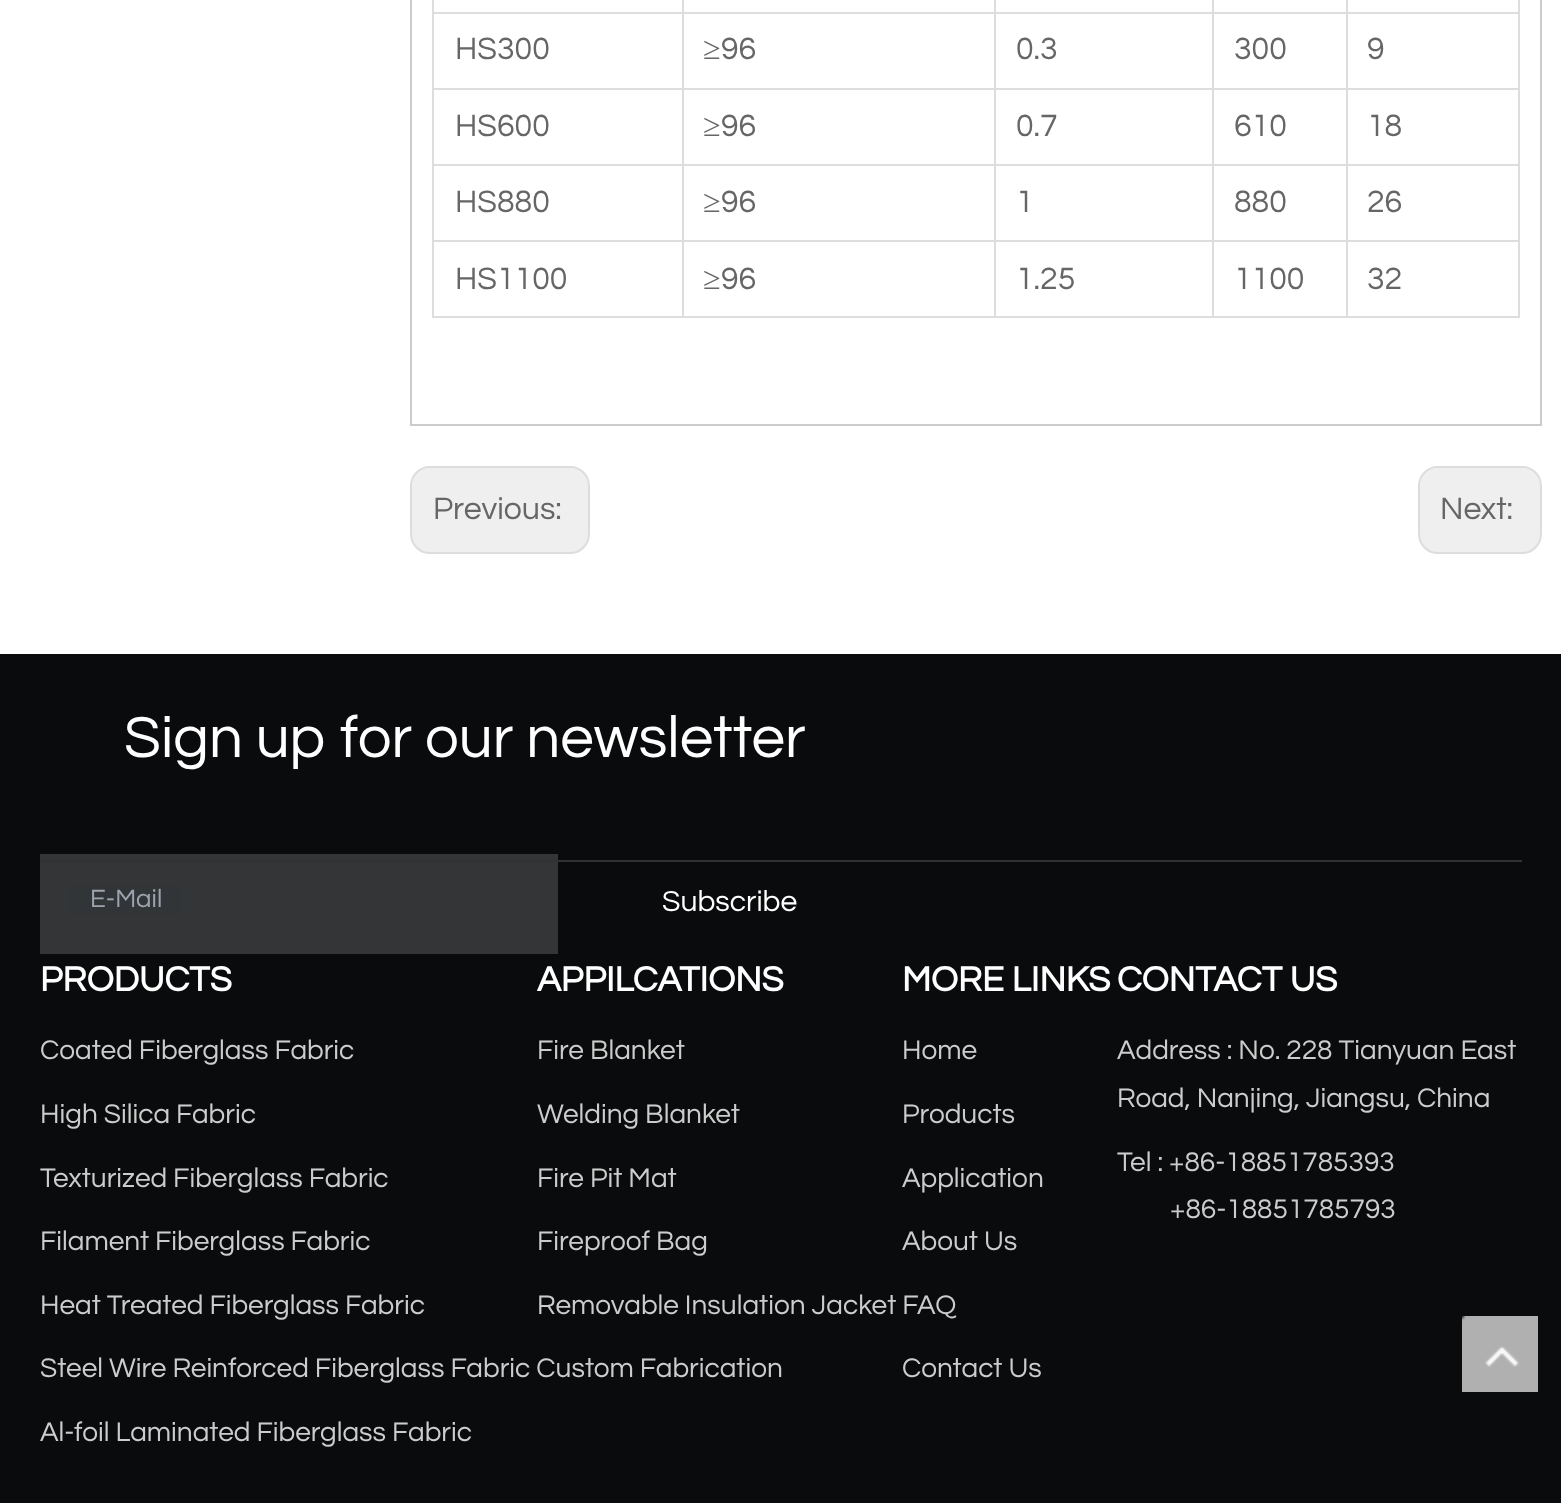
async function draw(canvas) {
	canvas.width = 1561;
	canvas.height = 1503;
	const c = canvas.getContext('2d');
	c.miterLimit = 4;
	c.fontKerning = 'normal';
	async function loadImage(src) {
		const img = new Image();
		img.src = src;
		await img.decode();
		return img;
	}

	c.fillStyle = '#fff';
	c.fillRect(0, 0, 1561, 1503);
	c.strokeStyle = '#ccc';
	c.lineWidth = 2;
	c.strokeRect(411, -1, 1130, 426);
	for (const [x, y, w, h, color] of [
		[1346, 12, 174, 2, '#ddd'],
		[1346, 88, 174, 2, '#ddd'],
		[1346, 164, 174, 2, '#ddd'],
		[1346, 240, 174, 2, '#ddd'],
		[1518, 240, 2, 78, '#ddd'],
		[1346, 316, 174, 2, '#ddd'],
		[1346, 240, 2, 78, '#ddd'],
		[1212, 240, 136, 2, '#ddd'],
		[1346, 164, 2, 78, '#ddd'],
		[1212, 164, 136, 2, '#ddd'],
		[1346, 88, 2, 78, '#ddd'],
		[1212, 88, 136, 2, '#ddd'],
		[1346, 12, 2, 78, '#ddd'],
		[1212, 12, 136, 2, '#ddd'],
		[1212, 316, 136, 2, '#ddd'],
		[1212, 240, 2, 78, '#ddd'],
		[994, 240, 220, 2, '#ddd'],
		[1212, 164, 2, 78, '#ddd'],
		[994, 164, 220, 2, '#ddd'],
		[1212, 88, 2, 78, '#ddd'],
		[994, 88, 220, 2, '#ddd'],
		[1212, 12, 2, 78, '#ddd'],
		[994, 12, 220, 2, '#ddd'],
		[994, 316, 220, 2, '#ddd'],
		[994, 240, 2, 78, '#ddd'],
		[682, 240, 314, 2, '#ddd'],
		[994, 164, 2, 78, '#ddd'],
		[682, 164, 314, 2, '#ddd'],
		[994, 88, 2, 78, '#ddd'],
		[682, 88, 314, 2, '#ddd'],
		[994, 12, 2, 78, '#ddd'],
		[682, 12, 314, 2, '#ddd'],
		[682, 316, 314, 2, '#ddd'],
		[682, 240, 2, 78, '#ddd'],
		[432, 240, 252, 2, '#ddd'],
		[682, 164, 2, 78, '#ddd'],
		[432, 164, 252, 2, '#ddd'],
		[682, 88, 2, 78, '#ddd'],
		[432, 88, 252, 2, '#ddd'],
		[682, 12, 2, 78, '#ddd'],
		[432, 12, 252, 2, '#ddd'],
		[682, 0, 2, 14, '#ddd'],
		[994, 0, 2, 14, '#ddd'],
		[1212, 0, 2, 14, '#ddd'],
		[1346, 0, 2, 14, '#ddd'],
		[432, 316, 252, 2, '#ddd'],
		[432, 240, 2, 78, '#ddd'],
		[432, 164, 2, 78, '#ddd'],
		[432, 88, 2, 78, '#ddd'],
		[432, 0, 2, 90, '#ddd'],
	]) {
		c.fillStyle = color;
		c.fillRect(x, y, w, h);
	}
	c.font = '32px Questrial';
	c.fillStyle = '#666';
	c.fillText('HS300', 455, 59);
	c.font = '32px Liberation Serif';
	c.fillText('≥', 703, 59);
	c.font = '32px Questrial';
	for (const [text, x, y] of [
		['96', 721, 59],
		['0.3', 1016, 59],
		['300', 1234, 59],
	]) {
		c.fillText(text, x, y);
	}
	for (const [x, y, w, h, color] of [
		[1518, 164, 2, 78, '#ddd'],
		[1518, 88, 2, 78, '#ddd'],
		[1518, 0, 2, 90, '#ddd'],
	]) {
		c.fillStyle = color;
		c.fillRect(x, y, w, h);
	}
	c.fillStyle = '#666';
	c.fillText('9', 1367, 59);
	c.fillText('HS600', 455, 136);
	c.font = '32px Liberation Serif';
	c.fillText('≥', 703, 136);
	c.font = '32px Questrial';
	for (const [text, x, y] of [
		['96', 721, 136],
		['0.7', 1016, 136],
		['610', 1234, 136],
		['18', 1367, 136],
		['HS880', 455, 212],
	]) {
		c.fillText(text, x, y);
	}
	c.font = '32px Liberation Serif';
	c.fillText('≥', 703, 212);
	c.font = '32px Questrial';
	for (const [text, x, y] of [
		['96', 721, 212],
		['1', 1016, 212],
		['880', 1234, 212],
		['26', 1367, 212],
		['HS1100', 455, 289],
	]) {
		c.fillText(text, x, y);
	}
	c.font = '32px Liberation Serif';
	c.fillText('≥', 703, 289);
	c.font = '32px Questrial';
	for (const [text, x, y] of [
		['96', 721, 289],
		['1.25', 1016, 289],
		['1100', 1234, 289],
		['32', 1367, 289],
	]) {
		c.fillText(text, x, y);
	}
	c.fillStyle = '#efefef';
	c.beginPath();
	c.roundRect(411, 467, 178, 86, 19);
	c.fill();
	c.strokeStyle = '#ddd';
	c.stroke();
	c.fillStyle = '#666';
	c.fillText('Previous:', 433, 519);
	c.fillStyle = '#efefef';
	c.beginPath();
	c.roundRect(1419, 467, 122, 86, 19);
	c.fill();
	c.stroke();
	c.fillStyle = '#666';
	c.fillText('Next:', 1440, 519);
	c.fillStyle = '#0a0b0c';
	c.fillRect(0, 654, 1561, 849);
	c.font = '60px Questrial';
	c.fillStyle = '#fff';
	c.fillText('Sign up for our newsletter', 124, 757);
	c.fillStyle = '#343537';
	c.fillRect(40, 854, 518, 100);
	c.fillStyle = '#313538';
	c.fillRect(70, 886, 112, 28);
	c.font = '26px Questrial';
	c.fillStyle = '#9ea3ae';
	c.fillText('E-Mail', 90, 907);
	c.font = '30px Questrial';
	c.fillStyle = '#fff';
	c.fillText('Subscribe', 662, 911);
	c.fillStyle = '#2f3336';
	c.fillRect(40, 860, 1482, 2);
	c.font = 'bold 36px Questrial';
	c.fillStyle = '#fff';
	c.fillText('PRODUCTS', 40, 991);
	c.font = '28px Questrial';
	c.fillStyle = '#ccc';
	for (const [text, x, y] of [
		['Coated Fiberglass Fabric', 40, 1059],
		['High Silica Fabric', 40, 1123],
		['Texturized Fiberglass Fabric', 40, 1187],
		['Filament Fiberglass Fabric', 40, 1250],
		['Heat Treated Fiberglass Fabric', 40, 1314],
		['Steel Wire Reinforced Fiberglass Fabric Custom Fabrication', 40, 1377],
		['Al-foil Laminated Fiberglass Fabric', 40, 1441],
	]) {
		c.fillText(text, x, y);
	}
	c.font = 'bold 36px Questrial';
	c.fillStyle = '#fff';
	c.fillText('APPILCATIONS', 537, 991);
	c.font = '28px Questrial';
	c.fillStyle = '#ccc';
	for (const [text, x, y] of [
		['Fire Blanket', 537, 1059],
		['Welding Blanket', 537, 1123],
		['Fire Pit Mat', 537, 1187],
		['Fireproof Bag', 537, 1250],
		['Removable Insulation Jacket FAQ', 537, 1314],
	]) {
		c.fillText(text, x, y);
	}
	c.font = 'bold 36px Questrial';
	c.fillStyle = '#fff';
	c.fillText('MORE LINKS', 902, 991);
	c.font = '28px Questrial';
	c.fillStyle = '#ccc';
	for (const [text, x, y] of [
		['Home', 902, 1059],
		['Products', 902, 1123],
		['Application', 902, 1187],
		['About Us', 902, 1250],
		['Contact Us', 902, 1377],
	]) {
		c.fillText(text, x, y);
	}
	c.font = 'bold 36px Questrial';
	c.fillStyle = '#fff';
	c.fillText('CONTACT US', 1117, 991);
	c.font = '28px Questrial';
	c.fillStyle = '#ccc';
	for (const [text, x, y] of [
		['Address : No. 228 Tianyuan East', 1117, 1059],
		['Road, Nanjing, Jiangsu, China', 1117, 1107],
		['Tel : +86-18851785393', 1117, 1171],
		['+86-18851785793', 1170, 1218],
	]) {
		c.fillText(text, x, y);
	}
	c.drawImage(await loadImage('img1.png'), 1462, 1316, 76, 76);
}

draw(document.querySelector('canvas'));
